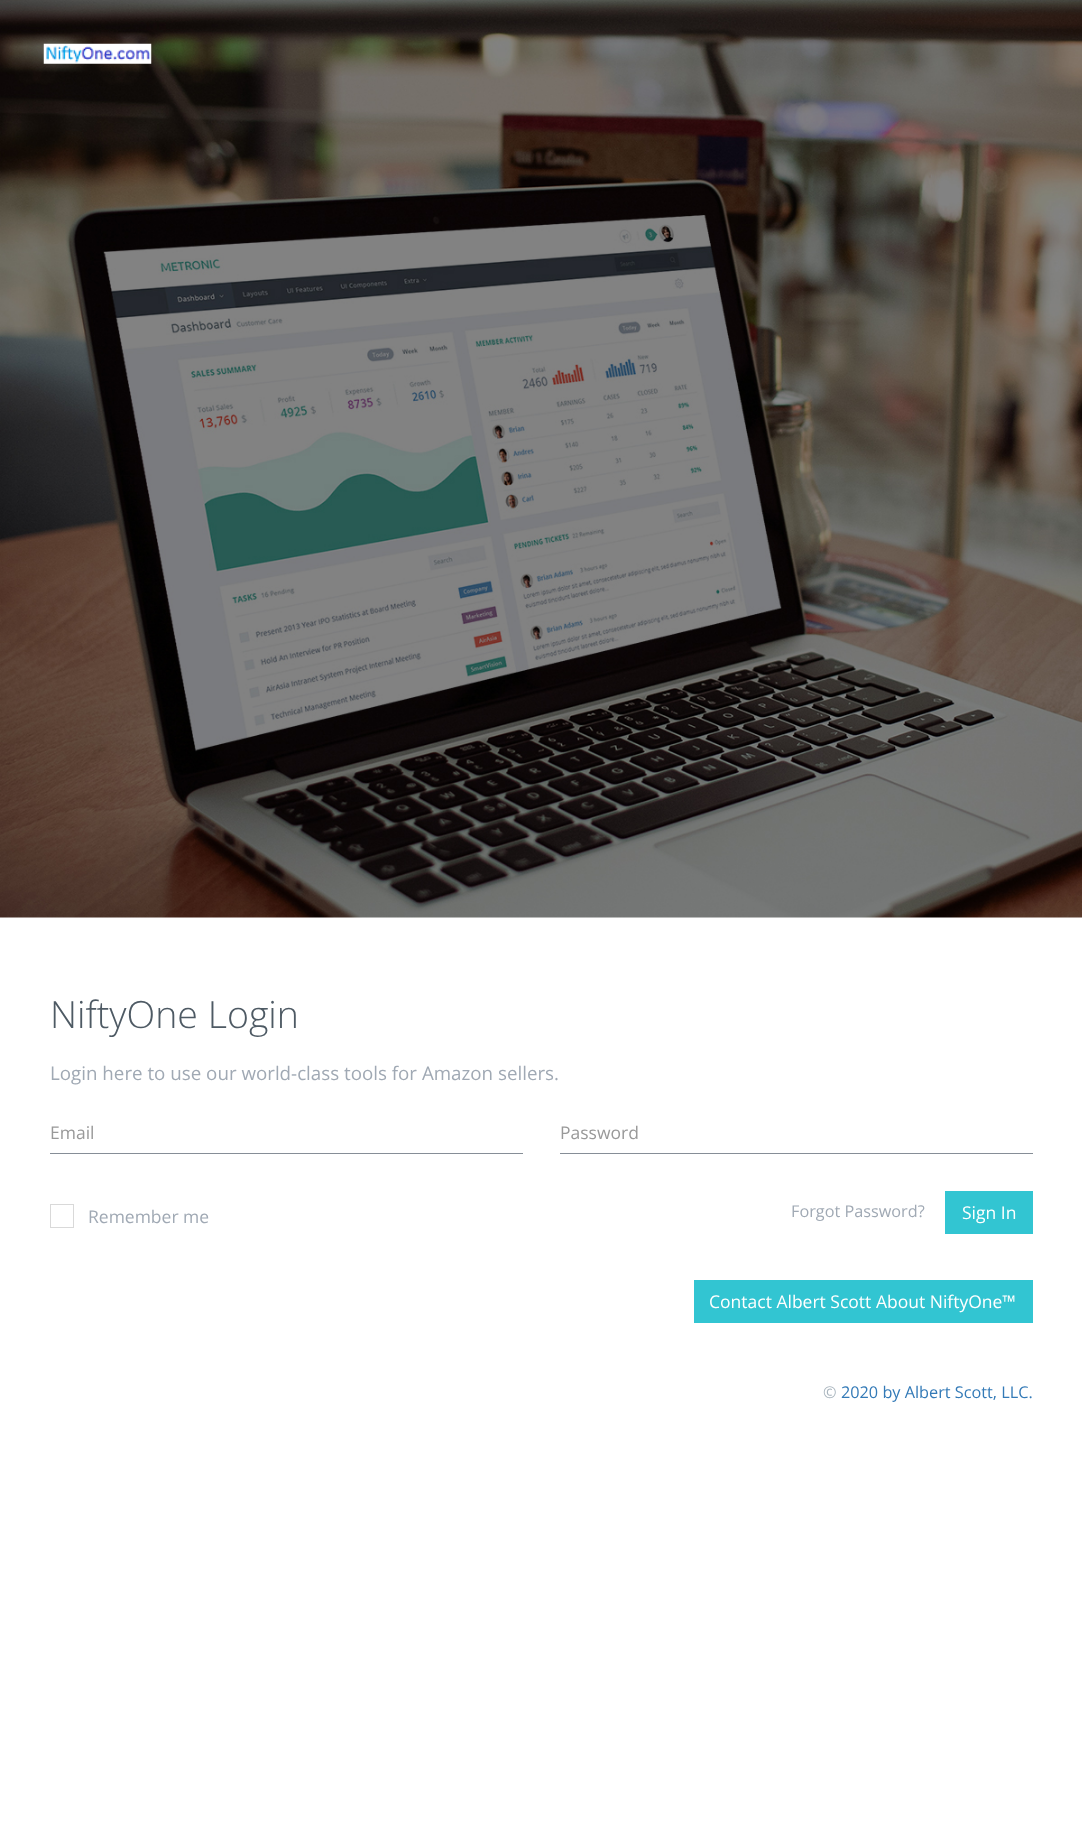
async function draw(canvas) {
	canvas.width = 1082;
	canvas.height = 1834;
	const c = canvas.getContext('2d');
	c.miterLimit = 4;
	c.fontKerning = 'normal';
	async function loadImage(src) {
		const img = new Image();
		img.src = src;
		await img.decode();
		return img;
	}

	c.fillStyle = '#fff';
	c.fillRect(0, 0, 1082, 1834);
	c.drawImage(await loadImage('img1.png'), 0, 0, 1082, 918);
	c.drawImage(await loadImage('img2.png'), 43, 43, 109, 21);
	c.font = '300 37.5px Open Sans';
	c.fillStyle = '#4e5a64';
	c.fillText('NiftyOne Login', 50, 1028);
	c.font = '18.75px Open Sans';
	c.fillStyle = '#a0a9b4';
	c.fillText('Login here to use our world-class tools for Amazon sellers.', 50, 1080);
	c.fillStyle = '#868e97';
	c.fillRect(50, 1153, 473, 1);
	c.font = '17.5px Open Sans';
	c.fillStyle = '#999';
	c.fillText('Email', 50, 1139);
	c.fillStyle = '#868e97';
	c.fillRect(560, 1153, 473, 1);
	c.fillStyle = '#999';
	c.fillText('Password', 560, 1139);
	c.strokeStyle = '#d9d9d9';
	c.strokeRect(50.5, 1204.5, 23, 23);
	c.fillStyle = '#a0a9b4';
	c.fillText('Remember me', 88, 1223);
	c.font = '16.25px Open Sans';
	c.fillText('Forgot Password?', 791, 1217);
	c.fillStyle = '#32c5d2';
	c.fillRect(945, 1191, 88, 43);
	c.font = '17.5px Open Sans';
	c.fillStyle = '#fff';
	c.fillText('Sign In', 962, 1219);
	c.fillStyle = '#32c5d2';
	c.fillRect(694, 1280, 339, 43);
	c.fillStyle = '#fff';
	c.fillText('Contact Albert Scott About NiftyOne™', 709, 1308);
	c.font = '16.25px Open Sans';
	c.fillStyle = '#a9b5be';
	c.fillText('©', 823, 1398);
	c.fillStyle = '#337ab7';
	c.fillText('2020 by Albert Scott, LLC.', 841, 1398);
}

draw(document.querySelector('canvas'));
